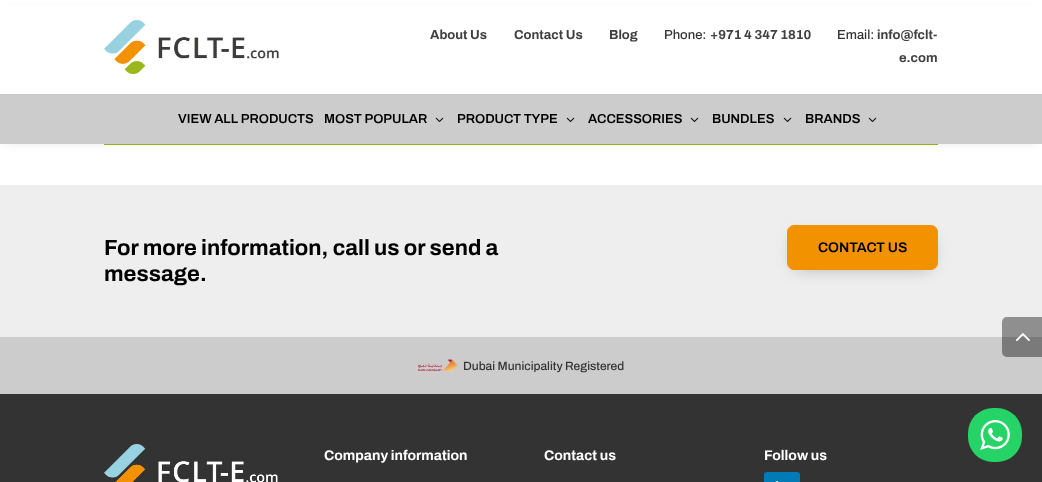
async function draw(canvas) {
	canvas.width = 1042;
	canvas.height = 482;
	const c = canvas.getContext('2d');
	c.miterLimit = 4;
	c.fontKerning = 'normal';
	async function loadImage(src) {
		const img = new Image();
		img.src = src;
		await img.decode();
		return img;
	}

	c.fillStyle = '#fff';
	c.fillRect(0, 0, 1042, 482);
	c.fillStyle = '#9bb71f';
	c.fillRect(104, 144, 834, 1);
	c.fillStyle = '#0000001a';
	c.filter = 'blur(5px)';
	c.beginPath();
	c.rect(6, 11, 1030, 132);
	c.fill();
	c.filter = 'none';
	c.fillStyle = '#fff';
	c.fillRect(0, 5, 1042, 89);
	c.drawImage(await loadImage('img1.png'), 104, 20, 175, 54);
	c.font = 'bold 13px Archivo';
	c.fillStyle = '#404042';
	for (const [text, x, y] of [
		['About Us', 430, 39],
		['Contact Us', 514, 39],
		['Blog', 609, 39],
	]) {
		c.fillText(text, x, y);
	}
	c.font = '500 13px Archivo';
	c.fillStyle = '#333';
	c.fillText('Phone:', 664, 39);
	c.font = 'bold 13px Archivo';
	c.fillStyle = '#404042';
	c.fillText('+971 4 347 1810', 710, 39);
	c.font = '500 13px Archivo';
	c.fillStyle = '#333';
	c.fillText('Email:', 837, 39);
	c.font = 'bold 13px Archivo';
	c.fillStyle = '#404042';
	c.fillText('info@fclt-', 877, 39);
	c.fillText('e.com', 899, 62);
	c.fillStyle = '#ccc';
	c.fillRect(0, 94, 1042, 50);
	c.font = '600 13px Archivo';
	c.fillStyle = '#000';
	c.fillText('VIEW ALL PRODUCTS', 178, 123);
	c.fillText('MOST POPULAR', 324, 123);
	c.drawImage(await loadImage('img2.png'), 435, 117, 9, 5);
	c.fillText('PRODUCT TYPE', 457, 123);
	c.drawImage(await loadImage('img2.png'), 566, 117, 9, 5);
	c.fillText('ACCESSORIES', 588, 123);
	c.drawImage(await loadImage('img2.png'), 690, 117, 9, 5);
	c.fillText('BUNDLES', 712, 123);
	c.drawImage(await loadImage('img2.png'), 783, 117, 9, 5);
	c.fillText('BRANDS', 805, 123);
	c.drawImage(await loadImage('img2.png'), 868, 117, 9, 5);
	c.fillStyle = '#eee';
	c.fillRect(0, 185, 1042, 152);
	c.font = 'bold 22px Archivo';
	c.fillStyle = '#000';
	c.fillText('For more information, call us or send a', 104, 255);
	c.fillText('message.', 104, 281);
	c.fillStyle = '#0000004d';
	c.filter = 'blur(9px)';
	c.beginPath();
	c.rect(795, 238, 135, 29);
	c.fill();
	c.filter = 'none';
	c.fillStyle = '#f39200';
	c.beginPath();
	c.roundRect(787.5, 225.5, 150, 44, 6.5);
	c.fill();
	c.strokeStyle = '#f39200';
	c.stroke();
	c.font = '600 14px Archivo';
	c.fillStyle = '#000';
	c.fillText('CONTACT US', 818, 252);
	c.fillStyle = '#ccc';
	c.fillRect(0, 337, 1042, 57);
	c.drawImage(await loadImage('img3.png'), 418, 359, 40, 12);
	c.font = '500 12px Archivo';
	c.fillStyle = '#333';
	c.fillText('Dubai Municipality Registered', 463, 370);
	c.fillRect(0, 394, 1042, 88);
	c.drawImage(await loadImage('img4.png'), 104, 444, 174, 38);
	c.font = 'bold 14px Archivo';
	c.fillStyle = '#fff';
	for (const [text, x, y] of [
		['Company information', 324, 460],
		['Contact us', 544, 460],
		['Follow us', 764, 460],
	]) {
		c.fillText(text, x, y);
	}
	c.fillStyle = '#007bb6';
	c.beginPath();
	c.roundRect(764, 472, 36, 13, 3);
	c.fill();
	c.drawImage(await loadImage('img5.png'), 775, 481, 4, 1);
	c.fillStyle = '#00000066';
	c.beginPath();
	c.roundRect(1002, 317, 40, 40, [5, 0, 0, 5]);
	c.fill();
	c.drawImage(await loadImage('img6.png'), 1015, 333, 15, 8);
	c.fillStyle = '#25d366';
	c.beginPath();
	c.roundRect(968, 408, 54, 54, 25);
	c.fill();
	c.drawImage(await loadImage('img7.png'), 980, 420, 30, 30);
}

draw(document.querySelector('canvas'));
